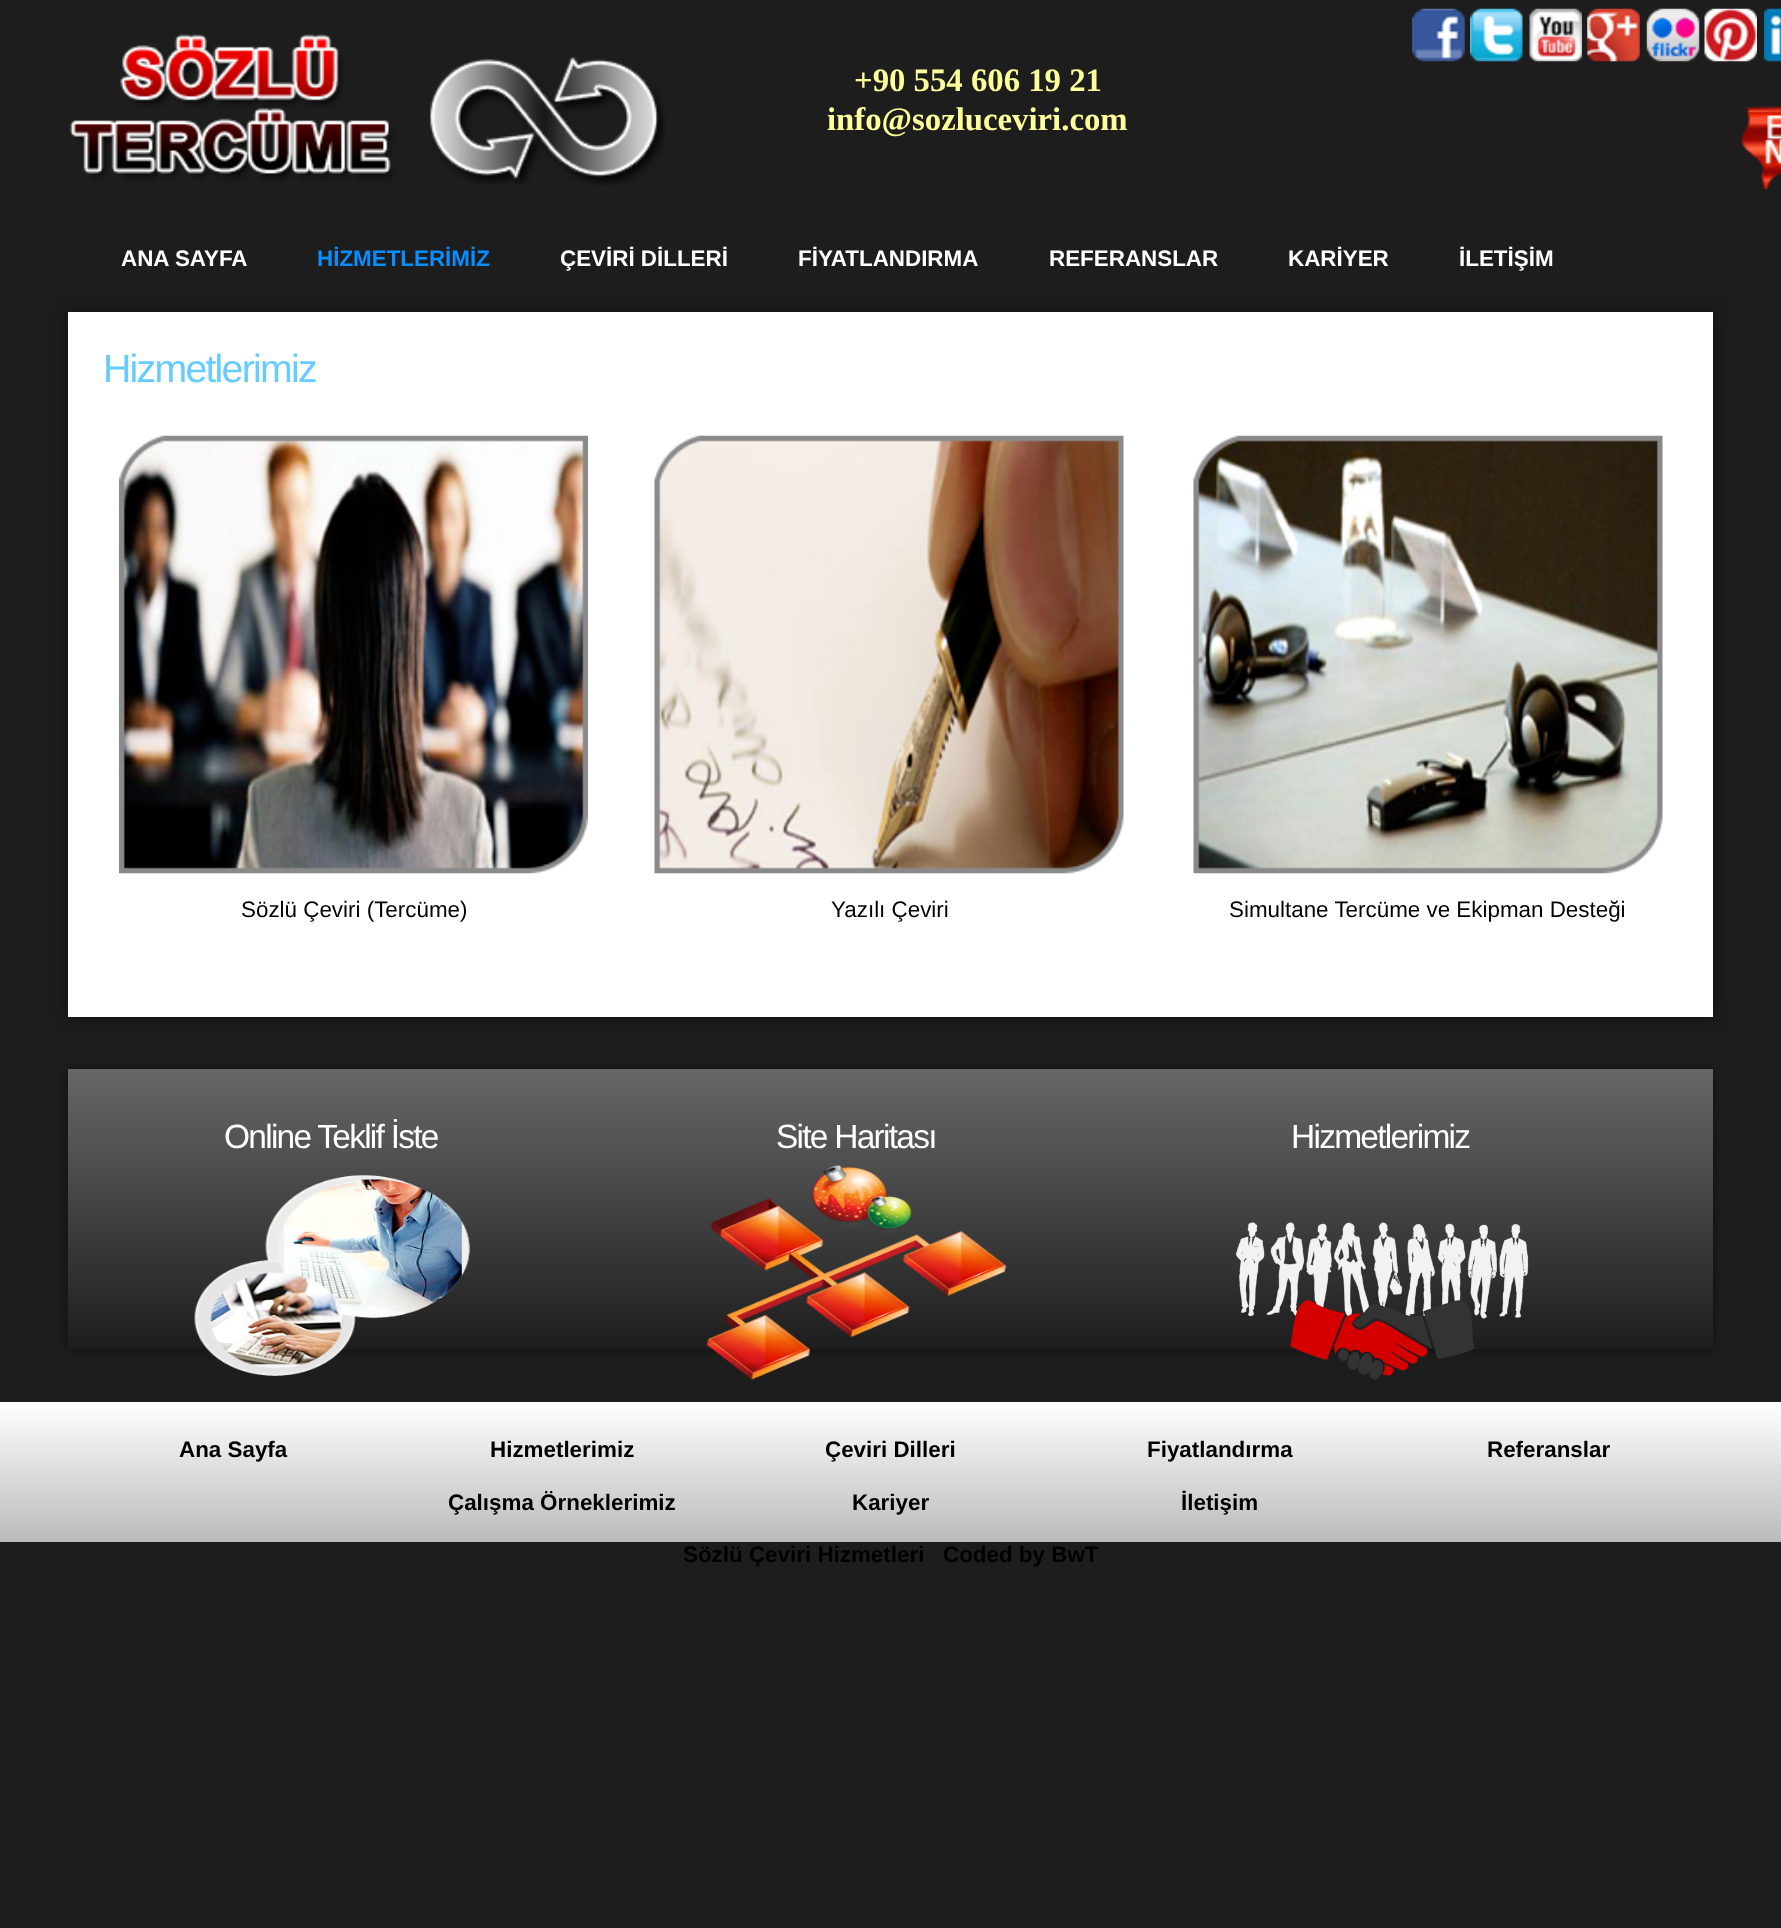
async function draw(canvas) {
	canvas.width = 1781;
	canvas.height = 1928;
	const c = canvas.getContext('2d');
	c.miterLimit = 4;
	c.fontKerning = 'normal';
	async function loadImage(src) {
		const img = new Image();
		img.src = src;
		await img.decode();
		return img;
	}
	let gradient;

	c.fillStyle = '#1d1d1d';
	c.fillRect(0, 0, 1781, 1928);
	c.drawImage(await loadImage('img1.png'), 69, 34, 596, 151);
	c.font = 'bold 32.75px Liberation Serif';
	c.fillStyle = '#ff9';
	c.fillText('+90 554 606 19 21', 854, 91);
	c.fillText('info@sozluceviri.com', 827, 130);
	c.drawImage(await loadImage('img2.png'), 1412, 8, 53, 54);
	c.drawImage(await loadImage('img3.png'), 1470, 8, 53, 54);
	c.drawImage(await loadImage('img4.png'), 1529, 8, 53, 54);
	c.drawImage(await loadImage('img5.png'), 1587, 8, 53, 54);
	c.drawImage(await loadImage('img6.png'), 1646, 8, 54, 54);
	c.drawImage(await loadImage('img7.png'), 1704, 8, 53, 54);
	c.drawImage(await loadImage('img8.png'), 1764, 8, 17, 54);
	c.drawImage(await loadImage('img9.png'), 1740, 106, 41, 83);
	c.font = 'bold 22.4px Liberation Sans';
	c.fillStyle = '#fff';
	c.fillText('ANA SAYFA', 121, 266);
	c.fillStyle = '#098eff';
	c.fillText('HİZMETLERİMİZ', 317, 266);
	c.fillStyle = '#fff';
	for (const [text, x, y] of [
		['ÇEVİRİ DİLLERİ', 560, 266],
		['FİYATLANDIRMA', 798, 266],
		['REFERANSLAR', 1049, 266],
		['KARİYER', 1288, 266],
		['İLETİŞİM', 1459, 266],
	]) {
		c.fillText(text, x, y);
	}
	c.fillStyle = '#00000080';
	c.filter = 'blur(9px)';
	c.beginPath();
	c.rect(68, 312, 1645, 705);
	c.fill();
	c.filter = 'none';
	c.fillStyle = '#fff';
	c.fillRect(68, 312, 1645, 705);
	c.letterSpacing = '-1.75px';
	c.font = '39.25px Liberation Sans';
	c.fillStyle = '#6cf';
	c.fillText('Hizmetlerimiz', 103, 382);
	c.drawImage(await loadImage('img10.png'), 119, 435, 469, 439);
	c.drawImage(await loadImage('img11.png'), 654, 435, 470, 439);
	c.drawImage(await loadImage('img12.png'), 1193, 435, 470, 439);
	c.letterSpacing = '0px';
	c.font = '22.4px Liberation Sans';
	c.fillStyle = '#000';
	for (const [text, x, y] of [
		['Sözlü Çeviri (Tercüme)', 241, 917],
		['Yazılı Çeviri', 831, 917],
		['Simultane Tercüme ve Ekipman Desteği', 1229, 917],
	]) {
		c.fillText(text, x, y);
	}
	c.fillStyle = '#00000080';
	c.filter = 'blur(4.5px)';
	c.beginPath();
	c.rect(68, 1069, 1645, 280);
	c.fill();
	c.filter = 'none';
	gradient = c.createLinearGradient(891, 1069, 891, 1349);
	gradient.addColorStop(0, '#676767');
	gradient.addColorStop(1, '#1d1d1d');
	c.fillStyle = gradient;
	c.fillRect(68, 1069, 1645, 280);
	c.letterSpacing = '-1.75px';
	c.font = '33.5px Liberation Sans';
	c.fillStyle = '#fff';
	c.fillText('Online Teklif İste', 224, 1148);
	c.drawImage(await loadImage('img13.png'), 194, 1175, 276, 201);
	c.fillText('Site Haritası', 776, 1148);
	c.drawImage(await loadImage('img14.png'), 707, 1165, 300, 215);
	c.fillText('Hizmetlerimiz', 1291, 1148);
	c.drawImage(await loadImage('img15.png'), 1236, 1222, 293, 158);
	gradient = c.createLinearGradient(891, 1402, 891, 1542);
	gradient.addColorStop(0, '#fff');
	gradient.addColorStop(1, '#bbb');
	c.fillStyle = gradient;
	c.fillRect(0, 1402, 1781, 140);
	c.letterSpacing = '0px';
	c.font = 'bold 22.4px Liberation Sans';
	c.fillStyle = '#000';
	for (const [text, x, y] of [
		['Ana Sayfa', 179, 1457],
		['Hizmetlerimiz', 490, 1457],
		['Çeviri Dilleri', 825, 1457],
		['Fiyatlandırma', 1147, 1457],
		['Referanslar', 1487, 1457],
		['Çalışma Örneklerimiz', 448, 1510],
		['Kariyer', 852, 1510],
		['İletişim', 1181, 1510],
		['Sözlü Çeviri Hizmetleri', 683, 1562],
		['Coded by BwT', 943, 1562],
	]) {
		c.fillText(text, x, y);
	}
}

draw(document.querySelector('canvas'));
